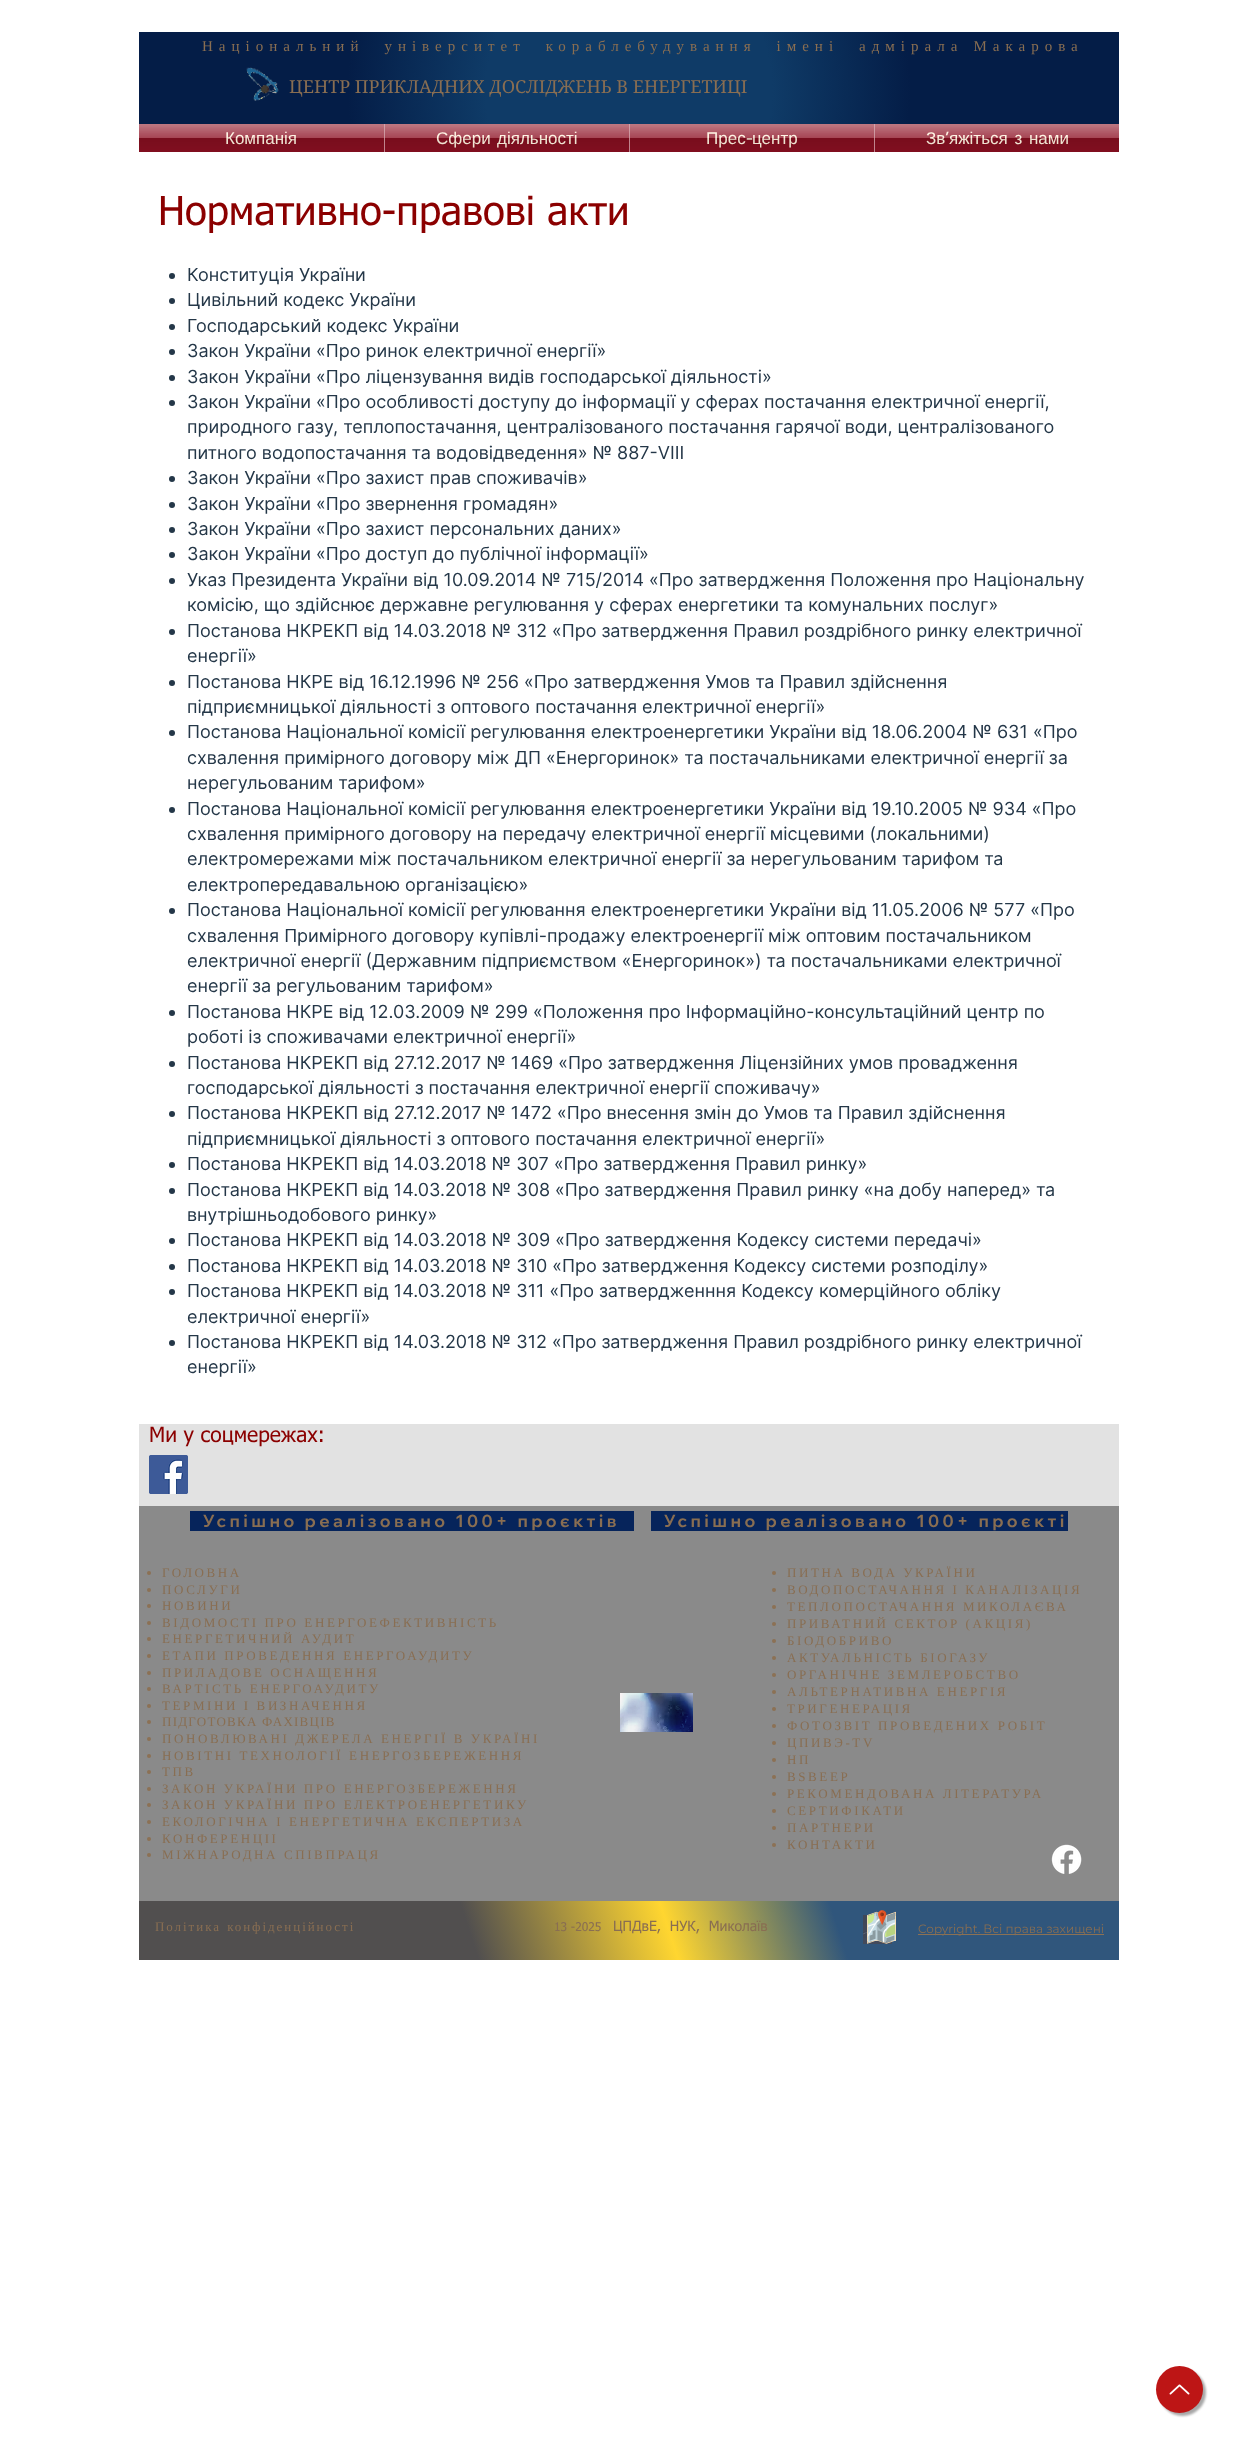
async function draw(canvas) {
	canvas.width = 1258;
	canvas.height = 2449;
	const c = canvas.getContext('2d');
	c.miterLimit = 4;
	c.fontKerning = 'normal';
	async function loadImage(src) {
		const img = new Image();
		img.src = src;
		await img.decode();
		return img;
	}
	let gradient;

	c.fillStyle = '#fff';
	c.fillRect(0, 0, 1258, 2449);
	gradient = c.createRadialGradient(629, 91, 0, 629, 91, 494);
	gradient.addColorStop(0.29, '#0f3b67');
	gradient.addColorStop(0.57, '#041d47');
	c.fillStyle = gradient;
	c.fillRect(139, 32, 980, 92);
	c.letterSpacing = '6px';
	c.wordSpacing = '0.25px';
	c.font = '15px Liberation Serif';
	c.fillStyle = '#896e52';
	c.fillText('Національний  університет  кораблебудування  імені  адмірала Макарова', 202, 51);
	c.drawImage(await loadImage('img1.png'), 246, 67, 33, 34);
	c.letterSpacing = '0px';
	c.wordSpacing = '0px';
	c.font = '18px "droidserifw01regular"';
	c.fillText('ЦЕНТР ПРИКЛАДНИХ ДОСЛІДЖЕНЬ В ЕНЕРГЕТИЦІ', 289, 93);
	c.fillStyle = '#8d1023';
	c.fillRect(139, 124, 980, 28);
	c.drawImage(await loadImage('img2.png'), 139, 124, 980, 28);
	c.font = '17px Liberation Sans';
	c.fillStyle = '#fff3e0';
	c.fillText('Компанія', 225, 144);
	c.drawImage(await loadImage('img3.png'), 139, 124, 245, 28);
	c.fillStyle = '#ffffff7d';
	c.fillRect(384, 124, 1, 28);
	c.fillStyle = '#fff3e0';
	c.fillText('Сфери', 436, 144);
	c.fillText('діяльності', 497, 144);
	c.drawImage(await loadImage('img4.png'), 385, 124, 244, 28);
	c.fillStyle = '#ffffff7d';
	c.fillRect(629, 124, 1, 28);
	c.fillStyle = '#fff3e0';
	c.fillText('Прес', 706, 144);
	c.font = '17px Prompt';
	c.fillText('-', 746, 144);
	c.font = '17px Liberation Sans';
	c.fillText('центр', 752, 144);
	c.drawImage(await loadImage('img5.png'), 630, 124, 244, 28);
	c.fillStyle = '#ffffff7d';
	c.fillRect(874, 124, 1, 28);
	c.fillStyle = '#fff3e0';
	c.fillText('Зв', 926, 144);
	c.font = '17px Prompt';
	c.fillText('’', 945, 144);
	c.wordSpacing = '2px';
	c.font = '17px Liberation Sans';
	c.fillText('яжіться з нами', 949, 144);
	c.drawImage(await loadImage('img6.png'), 875, 124, 244, 28);
	c.wordSpacing = '0px';
	c.font = '40px tahoma';
	c.fillStyle = '#8b0000';
	c.fillText('Нормативно-правові акти', 158, 225);
	c.fillStyle = '#243748';
	c.beginPath();
	c.arc(172, 276, 3, 0, 2 * Math.PI);
	c.fill();
	c.font = '18px Inter';
	c.fillText('Конституція України', 187, 281);
	c.beginPath();
	c.arc(172, 301, 3, 0, 2 * Math.PI);
	c.fill();
	c.fillText('Цивільний кодекс України', 187, 306);
	c.beginPath();
	c.arc(172, 327, 3, 0, 2 * Math.PI);
	c.fill();
	c.fillText('Господарський кодекс України', 187, 332);
	c.beginPath();
	c.arc(172, 352, 3, 0, 2 * Math.PI);
	c.fill();
	c.fillText('Закон України «Про ринок електричної енергії»', 187, 357);
	c.beginPath();
	c.arc(172, 378, 3, 0, 2 * Math.PI);
	c.fill();
	c.fillText('Закон України «Про ліцензування видів господарської діяльності»', 187, 383);
	c.beginPath();
	c.arc(172, 403, 3, 0, 2 * Math.PI);
	c.fill();
	for (const [text, x, y] of [
		['Закон України «Про особливості доступу до інформації у сферах постачання електричної енергії,', 187, 408],
		['природного газу, теплопостачання, централізованого постачання гарячої води, централізованого', 187, 433],
		['питного водопостачання та водовідведення» № 887-VIII', 187, 459],
	]) {
		c.fillText(text, x, y);
	}
	c.beginPath();
	c.arc(172, 479, 3, 0, 2 * Math.PI);
	c.fill();
	c.fillText('Закон України «Про захист прав споживачів»', 187, 484);
	c.beginPath();
	c.arc(172, 505, 3, 0, 2 * Math.PI);
	c.fill();
	c.fillText('Закон України «Про звернення громадян»', 187, 510);
	c.beginPath();
	c.arc(172, 530, 3, 0, 2 * Math.PI);
	c.fill();
	c.fillText('Закон України «Про захист персональних даних»', 187, 535);
	c.beginPath();
	c.arc(172, 555, 3, 0, 2 * Math.PI);
	c.fill();
	c.fillText('Закон України «Про доступ до публічної інформації»', 187, 560);
	c.beginPath();
	c.arc(172, 581, 3, 0, 2 * Math.PI);
	c.fill();
	c.fillText('Указ Президента України від 10.09.2014 № 715/2014 «Про затвердження Положення про Національну', 187, 586);
	c.fillText('комісію, що здійснює державне регулювання у сферах енергетики та комунальних послуг»', 187, 611);
	c.beginPath();
	c.arc(172, 632, 3, 0, 2 * Math.PI);
	c.fill();
	c.fillText('Постанова НКРЕКП від 14.03.2018 № 312 «Про затвердження Правил роздрібного ринку електричної', 187, 637);
	c.fillText('енергії»', 187, 662);
	c.beginPath();
	c.arc(172, 683, 3, 0, 2 * Math.PI);
	c.fill();
	c.fillText('Постанова НКРЕ від 16.12.1996 № 256 «Про затвердження Умов та Правил здійснення', 187, 688);
	c.fillText('підприємницької діяльності з оптового постачання електричної енергії»', 187, 713);
	c.beginPath();
	c.arc(172, 733, 3, 0, 2 * Math.PI);
	c.fill();
	for (const [text, x, y] of [
		['Постанова Національної комісії регулювання електроенергетики України від 18.06.2004 № 631 «Про', 187, 738],
		['схвалення примірного договору між ДП «Енергоринок» та постачальниками електричної енергії за', 187, 764],
		['нерегульованим тарифом»', 187, 789],
	]) {
		c.fillText(text, x, y);
	}
	c.beginPath();
	c.arc(172, 810, 3, 0, 2 * Math.PI);
	c.fill();
	for (const [text, x, y] of [
		['Постанова Національної комісії регулювання електроенергетики України від 19.10.2005 № 934 «Про', 187, 815],
		['схвалення примірного договору на передачу електричної енергії місцевими (локальними)', 187, 840],
		['електромережами між постачальником електричної енергії за нерегульованим тарифом та', 187, 865],
		['електропередавальною організацією»', 187, 891],
	]) {
		c.fillText(text, x, y);
	}
	c.beginPath();
	c.arc(172, 911, 3, 0, 2 * Math.PI);
	c.fill();
	for (const [text, x, y] of [
		['Постанова Національної комісії регулювання електроенергетики України від 11.05.2006 № 577 «Про', 187, 916],
		['схвалення Примірного договору купівлі-продажу електроенергії між оптовим постачальником', 187, 942],
		['електричної енергії (Державним підприємством «Енергоринок») та постачальниками електричної', 187, 967],
		['енергії за регульованим тарифом»', 187, 992],
	]) {
		c.fillText(text, x, y);
	}
	c.beginPath();
	c.arc(172, 1013, 3, 0, 2 * Math.PI);
	c.fill();
	c.fillText('Постанова НКРЕ від 12.03.2009 № 299 «Положення про Інформаційно-консультаційний центр по', 187, 1018);
	c.fillText('роботі із споживачами електричної енергії»', 187, 1043);
	c.beginPath();
	c.arc(172, 1064, 3, 0, 2 * Math.PI);
	c.fill();
	c.fillText('Постанова НКРЕКП від 27.12.2017 № 1469 «Про затвердження Ліцензійних умов провадження', 187, 1069);
	c.fillText('господарської діяльності з постачання електричної енергії споживачу»', 187, 1094);
	c.beginPath();
	c.arc(172, 1114, 3, 0, 2 * Math.PI);
	c.fill();
	c.fillText('Постанова НКРЕКП від 27.12.2017 № 1472 «Про внесення змін до Умов та Правил здійснення', 187, 1119);
	c.fillText('підприємницької діяльності з оптового постачання електричної енергії»', 187, 1145);
	c.beginPath();
	c.arc(172, 1165, 3, 0, 2 * Math.PI);
	c.fill();
	c.fillText('Постанова НКРЕКП від 14.03.2018 № 307 «Про затвердження Правил ринку»', 187, 1170);
	c.beginPath();
	c.arc(172, 1191, 3, 0, 2 * Math.PI);
	c.fill();
	c.fillText('Постанова НКРЕКП від 14.03.2018 № 308 «Про затвердження Правил ринку «на добу наперед» та', 187, 1196);
	c.fillText('внутрішньодобового ринку»', 187, 1221);
	c.beginPath();
	c.arc(172, 1241, 3, 0, 2 * Math.PI);
	c.fill();
	c.fillText('Постанова НКРЕКП від 14.03.2018 № 309 «Про затвердження Кодексу системи передачі»', 187, 1246);
	c.beginPath();
	c.arc(172, 1267, 3, 0, 2 * Math.PI);
	c.fill();
	c.fillText('Постанова НКРЕКП від 14.03.2018 № 310 «Про затвердження Кодексу системи розподілу»', 187, 1272);
	c.beginPath();
	c.arc(172, 1292, 3, 0, 2 * Math.PI);
	c.fill();
	c.fillText('Постанова НКРЕКП від 14.03.2018 № 311 «Про затвердженння Кодексу комерційного обліку', 187, 1297);
	c.fillText('електричної енергії»', 187, 1323);
	c.beginPath();
	c.arc(172, 1343, 3, 0, 2 * Math.PI);
	c.fill();
	c.fillText('Постанова НКРЕКП від 14.03.2018 № 312 «Про затвердження Правил роздрібного ринку електричної', 187, 1348);
	c.fillText('енергії»', 187, 1373);
	c.fillStyle = '#e2e2e2';
	c.fillRect(139, 1424, 980, 82);
	c.font = '21px tahoma';
	c.fillStyle = '#8b0000';
	c.fillText('Ми у соцмережах:', 149, 1442);
	c.drawImage(await loadImage('img7.png'), 149, 1455, 39, 39);
	c.fillStyle = '#8a8a8a';
	c.fillRect(139, 1506, 980, 395);
	c.fillStyle = '#06245b';
	c.fillRect(190, 1511, 444, 20);
	c.letterSpacing = '3.4px';
	c.font = 'bold 17px Wix Madefor Display';
	c.fillStyle = '#896e52';
	c.fillText('Успішно реалізовано 100+ проєктів', 203, 1527);
	c.fillStyle = '#06245b';
	c.fillRect(651, 1511, 417, 20);
	c.fillStyle = '#896e52';
	c.fillText('Успішно реалізовано 100+ проєкті', 664, 1527);
	c.fillStyle = '#8c7154';
	c.beginPath();
	c.arc(149, 1573, 2, 0, 2 * Math.PI);
	c.fill();
	c.letterSpacing = '2.6px';
	c.font = '13px Liberation Serif';
	c.fillStyle = '#896e52';
	c.fillText('ГОЛОВНА', 162, 1577);
	c.fillStyle = '#8c7154';
	c.beginPath();
	c.arc(149, 1590, 2, 0, 2 * Math.PI);
	c.fill();
	c.fillStyle = '#896e52';
	c.fillText('ПОСЛУГИ', 162, 1594);
	c.fillStyle = '#8c7154';
	c.beginPath();
	c.arc(149, 1606, 2, 0, 2 * Math.PI);
	c.fill();
	c.fillStyle = '#896e52';
	c.fillText('НОВИНИ', 162, 1610);
	c.fillStyle = '#8c7154';
	c.beginPath();
	c.arc(149, 1623, 2, 0, 2 * Math.PI);
	c.fill();
	c.fillStyle = '#896e52';
	c.fillText('ВІДОМОСТІ ПРО ЕНЕРГОЕФЕКТИВНІСТЬ', 162, 1627);
	c.fillStyle = '#8c7154';
	c.beginPath();
	c.arc(149, 1639, 2, 0, 2 * Math.PI);
	c.fill();
	c.fillStyle = '#896e52';
	c.fillText('ЕНЕРГЕТИЧНИЙ АУДИТ', 162, 1643);
	c.fillStyle = '#8c7154';
	c.beginPath();
	c.arc(149, 1656, 2, 0, 2 * Math.PI);
	c.fill();
	c.fillStyle = '#896e52';
	c.fillText('ЕТАПИ ПРОВЕДЕННЯ ЕНЕРГОАУДИТУ', 162, 1660);
	c.fillStyle = '#8c7154';
	c.beginPath();
	c.arc(149, 1673, 2, 0, 2 * Math.PI);
	c.fill();
	c.fillStyle = '#896e52';
	c.fillText('ПРИЛАДОВЕ ОСНАЩЕННЯ', 162, 1677);
	c.fillStyle = '#8c7154';
	c.beginPath();
	c.arc(149, 1689, 2, 0, 2 * Math.PI);
	c.fill();
	c.fillStyle = '#896e52';
	c.fillText('ВАРТІСТЬ ЕНЕРГОАУДИТУ', 162, 1693);
	c.fillStyle = '#8c7154';
	c.beginPath();
	c.arc(149, 1706, 2, 0, 2 * Math.PI);
	c.fill();
	c.fillStyle = '#896e52';
	c.fillText('ТЕРМІНИ І ВИЗНАЧЕННЯ', 162, 1710);
	c.fillStyle = '#8c7154';
	c.beginPath();
	c.arc(149, 1722, 2, 0, 2 * Math.PI);
	c.fill();
	c.letterSpacing = '1.25px';
	c.fillStyle = '#896e52';
	c.fillText('ПІДГОТОВКА ФАХІВЦІВ', 162, 1726);
	c.fillStyle = '#8c7154';
	c.beginPath();
	c.arc(149, 1739, 2, 0, 2 * Math.PI);
	c.fill();
	c.letterSpacing = '2.6px';
	c.fillStyle = '#896e52';
	c.fillText('ПОНОВЛЮВАНІ ДЖЕРЕЛА ЕНЕРГІЇ В УКРАЇНІ', 162, 1743);
	c.fillStyle = '#8c7154';
	c.beginPath();
	c.arc(149, 1756, 2, 0, 2 * Math.PI);
	c.fill();
	c.fillStyle = '#896e52';
	c.fillText('НОВІТНІ ТЕХНОЛОГІЇ ЕНЕРГОЗБЕРЕЖЕННЯ', 162, 1760);
	c.fillStyle = '#8c7154';
	c.beginPath();
	c.arc(149, 1772, 2, 0, 2 * Math.PI);
	c.fill();
	c.fillStyle = '#896e52';
	c.fillText('ТПВ', 162, 1776);
	c.fillStyle = '#8c7154';
	c.beginPath();
	c.arc(149, 1789, 2, 0, 2 * Math.PI);
	c.fill();
	c.fillStyle = '#896e52';
	c.fillText('ЗАКОН УКРАЇНИ ПРО ЕНЕРГОЗБЕРЕЖЕННЯ', 162, 1793);
	c.fillStyle = '#8c7154';
	c.beginPath();
	c.arc(149, 1805, 2, 0, 2 * Math.PI);
	c.fill();
	c.fillStyle = '#896e52';
	c.fillText('ЗАКОН УКРАЇНИ ПРО ЕЛЕКТРОЕНЕРГЕТИКУ', 162, 1809);
	c.fillStyle = '#8c7154';
	c.beginPath();
	c.arc(149, 1822, 2, 0, 2 * Math.PI);
	c.fill();
	c.fillStyle = '#896e52';
	c.fillText('ЕКОЛОГІЧНА І ЕНЕРГЕТИЧНА ЕКСПЕРТИЗА', 162, 1826);
	c.fillStyle = '#8c7154';
	c.beginPath();
	c.arc(149, 1839, 2, 0, 2 * Math.PI);
	c.fill();
	c.fillStyle = '#896e52';
	c.fillText('КОНФЕРЕНЦІІ', 162, 1843);
	c.fillStyle = '#8c7154';
	c.beginPath();
	c.arc(149, 1855, 2, 0, 2 * Math.PI);
	c.fill();
	c.fillStyle = '#896e52';
	c.fillText('МІЖНАРОДНА СПІВПРАЦЯ', 162, 1859);
	c.drawImage(await loadImage('img8.png'), 620, 1693, 73, 39);
	c.fillStyle = '#8c7154';
	c.beginPath();
	c.arc(774, 1573, 2, 0, 2 * Math.PI);
	c.fill();
	c.fillStyle = '#896e52';
	c.fillText('ПИТНА ВОДА УКРАЇНИ', 787, 1577);
	c.fillStyle = '#8c7154';
	c.beginPath();
	c.arc(774, 1590, 2, 0, 2 * Math.PI);
	c.fill();
	c.fillStyle = '#896e52';
	c.fillText('ВОДОПОСТАЧАННЯ І КАНАЛІЗАЦІЯ', 787, 1594);
	c.fillStyle = '#8c7154';
	c.beginPath();
	c.arc(774, 1607, 2, 0, 2 * Math.PI);
	c.fill();
	c.fillStyle = '#896e52';
	c.fillText('ТЕПЛОПОСТАЧАННЯ МИКОЛАЄВА', 787, 1611);
	c.fillStyle = '#8c7154';
	c.beginPath();
	c.arc(774, 1624, 2, 0, 2 * Math.PI);
	c.fill();
	c.fillStyle = '#896e52';
	c.fillText('ПРИВАТНИЙ СЕКТОР (АКЦІЯ)', 787, 1628);
	c.fillStyle = '#8c7154';
	c.beginPath();
	c.arc(774, 1641, 2, 0, 2 * Math.PI);
	c.fill();
	c.fillStyle = '#896e52';
	c.fillText('БІОДОБРИВО', 787, 1645);
	c.fillStyle = '#8c7154';
	c.beginPath();
	c.arc(774, 1658, 2, 0, 2 * Math.PI);
	c.fill();
	c.fillStyle = '#896e52';
	c.fillText('АКТУАЛЬНІСТЬ БІОГАЗУ', 787, 1662);
	c.fillStyle = '#8c7154';
	c.beginPath();
	c.arc(774, 1675, 2, 0, 2 * Math.PI);
	c.fill();
	c.fillStyle = '#896e52';
	c.fillText('ОРГАНІЧНЕ ЗЕМЛЕРОБСТВО', 787, 1679);
	c.fillStyle = '#8c7154';
	c.beginPath();
	c.arc(774, 1692, 2, 0, 2 * Math.PI);
	c.fill();
	c.fillStyle = '#896e52';
	c.fillText('АЛЬТЕРНАТИВНА ЕНЕРГІЯ', 787, 1696);
	c.fillStyle = '#8c7154';
	c.beginPath();
	c.arc(774, 1709, 2, 0, 2 * Math.PI);
	c.fill();
	c.fillStyle = '#896e52';
	c.fillText('ТРИГЕНЕРАЦІЯ', 787, 1713);
	c.fillStyle = '#8c7154';
	c.beginPath();
	c.arc(774, 1726, 2, 0, 2 * Math.PI);
	c.fill();
	c.fillStyle = '#896e52';
	c.fillText('ФОТОЗВІТ ПРОВЕДЕНИХ РОБІТ', 787, 1730);
	c.fillStyle = '#8c7154';
	c.beginPath();
	c.arc(774, 1743, 2, 0, 2 * Math.PI);
	c.fill();
	c.fillStyle = '#896e52';
	c.fillText('ЦПИВЭ-ТV', 787, 1747);
	c.fillStyle = '#8c7154';
	c.beginPath();
	c.arc(774, 1760, 2, 0, 2 * Math.PI);
	c.fill();
	c.fillStyle = '#896e52';
	c.fillText('НП', 787, 1764);
	c.fillStyle = '#8c7154';
	c.beginPath();
	c.arc(774, 1777, 2, 0, 2 * Math.PI);
	c.fill();
	c.fillStyle = '#896e52';
	c.fillText('BSBEEP', 787, 1781);
	c.fillStyle = '#8c7154';
	c.beginPath();
	c.arc(774, 1794, 2, 0, 2 * Math.PI);
	c.fill();
	c.fillStyle = '#896e52';
	c.fillText('РЕКОМЕНДОВАНА ЛІТЕРАТУРА', 787, 1798);
	c.fillStyle = '#8c7154';
	c.beginPath();
	c.arc(774, 1811, 2, 0, 2 * Math.PI);
	c.fill();
	c.fillStyle = '#896e52';
	c.fillText('СЕРТИФІКАТИ', 787, 1815);
	c.fillStyle = '#8c7154';
	c.beginPath();
	c.arc(774, 1828, 2, 0, 2 * Math.PI);
	c.fill();
	c.fillStyle = '#896e52';
	c.fillText('ПАРТНЕРИ', 787, 1832);
	c.fillStyle = '#8c7154';
	c.beginPath();
	c.arc(774, 1845, 2, 0, 2 * Math.PI);
	c.fill();
	c.fillStyle = '#896e52';
	c.fillText('КОНТАКТИ', 787, 1849);
	c.drawImage(await loadImage('img9.png'), 1051, 1844, 31, 30);
	gradient = c.createLinearGradient(177, 2077, 1081, 1784);
	gradient.addColorStop(0.34, '#514f4f');
	gradient.addColorStop(0.54, '#ffd630');
	gradient.addColorStop(0.71, '#30567c');
	c.fillStyle = gradient;
	c.fillRect(139, 1901, 980, 59);
	c.drawImage(await loadImage('img11.png'), 863, 1915, 29, 29);
	c.drawImage(await loadImage('img10.png'), 867, 1910, 29, 34);
	c.letterSpacing = '1.95px';
	c.wordSpacing = '1px';
	c.fillStyle = '#896e52';
	c.fillText('Політика конфіденційності', 155, 1931);
	c.letterSpacing = '0px';
	c.wordSpacing = '0px';
	c.font = '12px tahoma';
	c.fillText('13 -2025', 554, 1931);
	c.font = '14px tahoma';
	c.fillText('ЦПДвЕ,  НУК,  Миколаїв', 613, 1931);
	c.fillStyle = '#8c7154';
	c.fillRect(918, 1934, 186, 1);
	c.font = '12px Montserrat';
	c.fillStyle = '#896e52';
	c.fillText('Copyright. Всі права захищені', 918, 1933);
	c.fillStyle = '#00000057';
	c.filter = 'blur(1px)';
	c.beginPath();
	c.roundRect(1159, 2369, 47, 47, 23.5);
	c.fill();
	c.filter = 'none';
	c.fillStyle = '#bd1515';
	c.beginPath();
	c.arc(1179.5, 2389.5, 23.5, 0, 2 * Math.PI);
	c.fill();
	c.drawImage(await loadImage('img12.png'), 1169, 2384, 21, 11);
}

draw(document.querySelector('canvas'));
